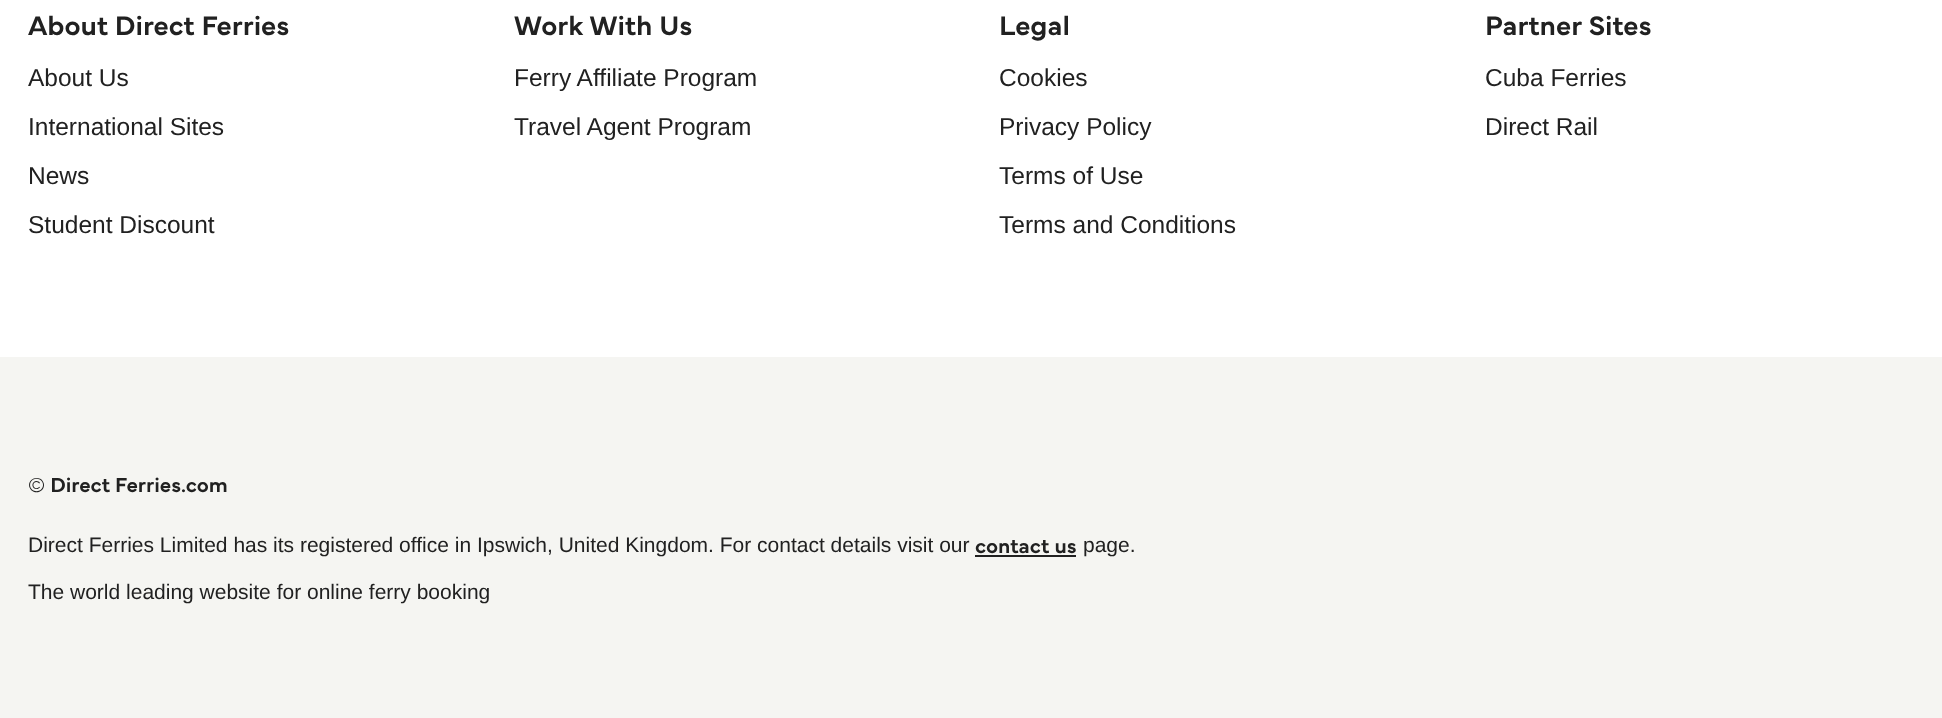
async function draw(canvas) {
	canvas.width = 1942;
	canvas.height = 718;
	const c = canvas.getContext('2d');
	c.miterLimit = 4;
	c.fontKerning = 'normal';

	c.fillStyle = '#fff';
	c.fillRect(0, 0, 1942, 718);
	c.font = '600 28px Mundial';
	c.fillStyle = '#212121';
	c.fillText('About Direct Ferries', 28, 35);
	c.font = '24.5px Liberation Sans';
	for (const [text, x, y] of [
		['About Us', 28, 86],
		['International Sites', 28, 135],
		['News', 28, 184],
		['Student Discount', 28, 233],
	]) {
		c.fillText(text, x, y);
	}
	c.font = '600 28px Mundial';
	c.fillText('Work With Us', 514, 35);
	c.font = '24.5px Liberation Sans';
	c.fillText('Ferry Affiliate Program', 514, 86);
	c.fillText('Travel Agent Program', 514, 135);
	c.font = '600 28px Mundial';
	c.fillText('Legal', 999, 35);
	c.font = '24.5px Liberation Sans';
	for (const [text, x, y] of [
		['Cookies', 999, 86],
		['Privacy Policy', 999, 135],
		['Terms of Use', 999, 184],
		['Terms and Conditions', 999, 233],
	]) {
		c.fillText(text, x, y);
	}
	c.font = '600 28px Mundial';
	c.fillText('Partner Sites', 1485, 35);
	c.font = '24.5px Liberation Sans';
	c.fillText('Cuba Ferries', 1485, 86);
	c.fillText('Direct Rail', 1485, 135);
	c.fillStyle = '#f5f5f2';
	c.fillRect(0, 357, 1942, 361);
	c.font = '600 21px Mundial';
	c.fillStyle = '#212121';
	c.fillText('© Direct Ferries.com', 28, 492);
	c.font = '21px Liberation Sans';
	c.fillText('Direct Ferries Limited has its registered office in Ipswich, United Kingdom. For contact details visit our', 28, 552);
	c.font = '600 21px Mundial';
	c.fillText('contact us', 975, 553);
	c.fillRect(975, 555, 101, 2);
	c.font = '21px Liberation Sans';
	c.fillText('page.', 1083, 552);
	c.fillText('The world leading website for online ferry booking', 28, 599);
}

draw(document.querySelector('canvas'));
